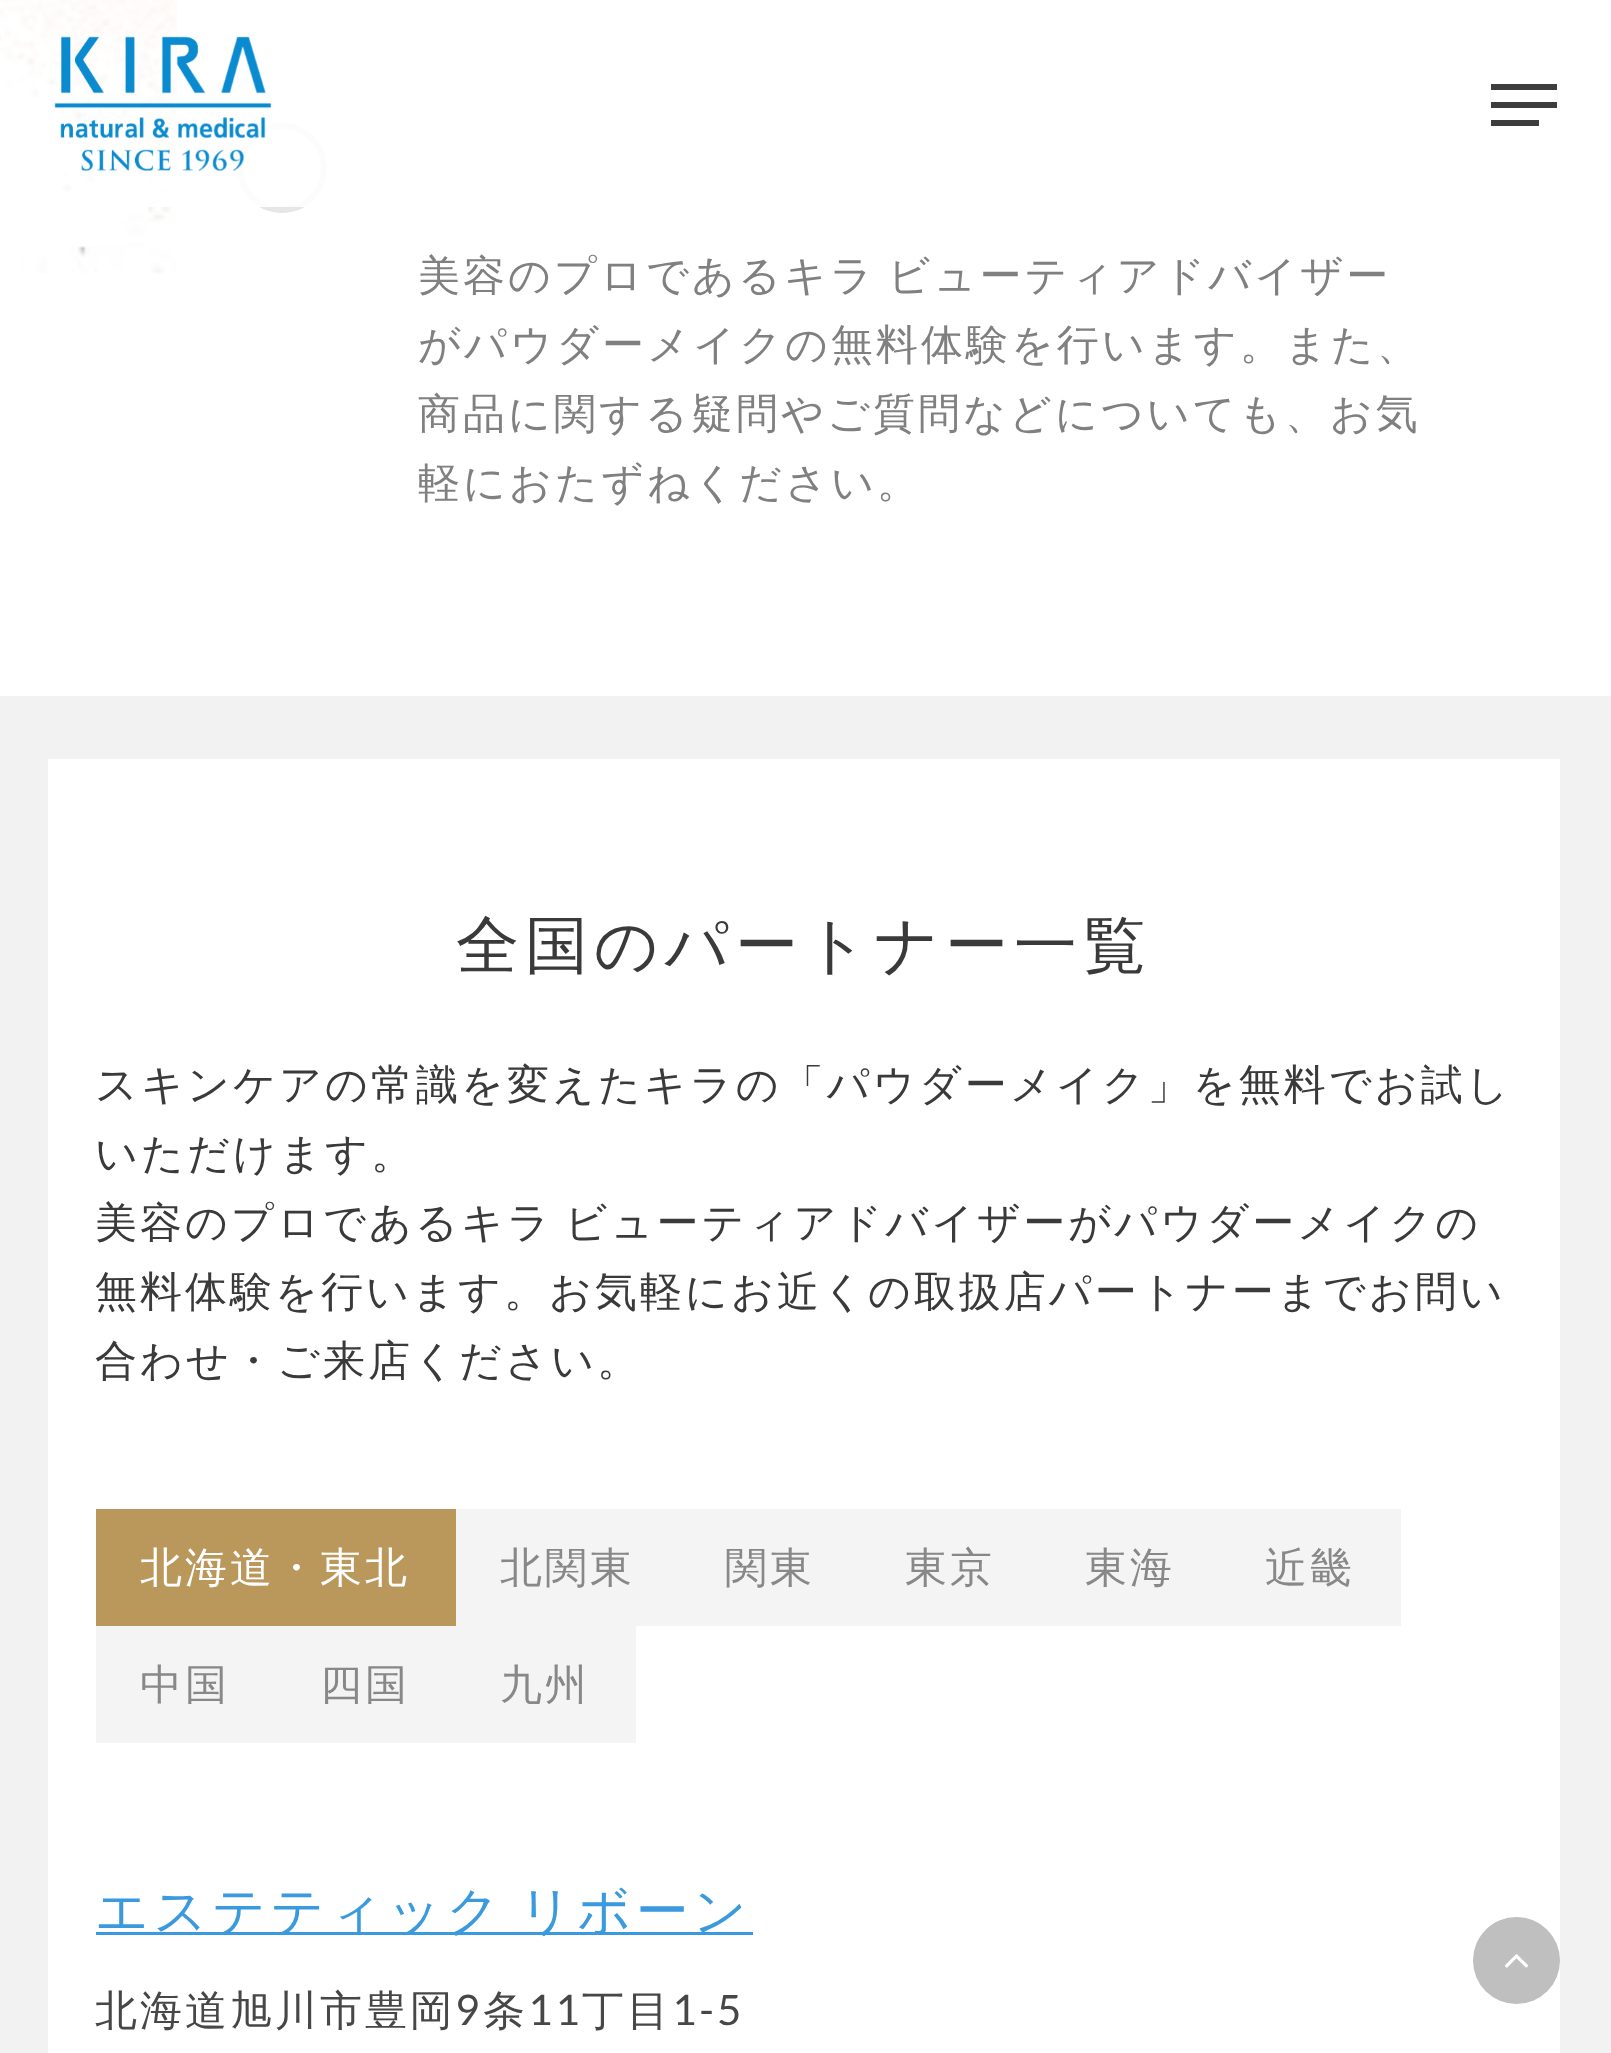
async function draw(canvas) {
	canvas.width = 1611;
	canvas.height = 2053;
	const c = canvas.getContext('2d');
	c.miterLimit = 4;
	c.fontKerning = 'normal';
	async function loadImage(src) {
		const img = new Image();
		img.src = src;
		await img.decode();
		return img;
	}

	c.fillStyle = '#fff';
	c.fillRect(0, 0, 1611, 2053);
	c.drawImage(await loadImage('img2.png'), 0, 0, 177, 503);
	c.beginPath();
	c.arc(282, 168, 42, 0, 2 * Math.PI);
	c.strokeStyle = '#e6e6e6';
	c.lineWidth = 6;
	c.stroke();
	c.fillStyle = '#ffffffd9';
	c.fillRect(0, 0, 327, 207);
	c.drawImage(await loadImage('img1.png'), 54, 36, 218, 135);
	for (const [x, y, w, h, color] of [
		[1491, 84, 66, 6, '#3d3d3d'],
		[1491, 120, 48, 6, '#3d3d3d'],
		[1491, 102, 66, 6, '#3d3d3d'],
	]) {
		c.fillStyle = color;
		c.fillRect(x, y, w, h);
	}
	c.letterSpacing = '3px';
	c.wordSpacing = '-4px';
	c.font = '500 42px WenQuanYi Zen Hei';
	c.fillStyle = '#808080';
	c.fillText('美容のプロであるキラ ビューティアドバイザー', 418, 290);
	c.wordSpacing = '0px';
	for (const [text, x, y] of [
		['がパウダーメイクの無料体験を行います。また、', 418, 359],
		['商品に関する疑問やご質問などについても、お気', 418, 428],
		['軽におたずねください。', 418, 497],
	]) {
		c.fillText(text, x, y);
	}
	c.fillStyle = '#f2f2f2';
	c.fillRect(0, 696, 1611, 1357);
	c.fillStyle = '#fff';
	c.fillRect(48, 759, 1512, 1294);
	c.letterSpacing = '6px';
	c.font = '500 63px WenQuanYi Zen Hei';
	c.fillStyle = '#3a3a3a';
	c.fillText('全国のパートナー一覧', 456, 967);
	c.letterSpacing = '3px';
	c.font = '500 42px WenQuanYi Zen Hei';
	c.fillText('スキンケアの常識を変えたキラの「パウダーメイク」を無料でお試し', 95, 1099);
	c.fillText('いただけます。', 95, 1168);
	c.wordSpacing = '-4px';
	c.fillText('美容のプロであるキラ ビューティアドバイザーがパウダーメイクの', 95, 1237);
	c.wordSpacing = '0px';
	c.fillText('無料体験を行います。お気軽にお近くの取扱店パートナーまでお問い', 95, 1306);
	c.fillText('合わせ・ご来店ください。', 95, 1375);
	c.fillStyle = '#ba975b';
	c.fillRect(96, 1509, 360, 117);
	c.fillStyle = '#fff';
	c.fillText('北海道・東北', 140, 1582);
	c.fillStyle = '#f4f4f4';
	c.fillRect(456, 1509, 945, 117);
	c.fillStyle = '#888';
	for (const [text, x, y] of [
		['北関東', 500, 1582],
		['関東', 725, 1582],
		['東京', 905, 1582],
		['東海', 1085, 1582],
		['近畿', 1265, 1582],
	]) {
		c.fillText(text, x, y);
	}
	c.fillStyle = '#f4f4f4';
	c.fillRect(96, 1626, 540, 117);
	c.fillStyle = '#888';
	for (const [text, x, y] of [
		['中国', 140, 1699],
		['四国', 320, 1699],
		['九州', 500, 1699],
	]) {
		c.fillText(text, x, y);
	}
	c.fillStyle = '#3b9add';
	c.fillRect(96, 1932, 657, 3);
	c.letterSpacing = '4.5px';
	c.wordSpacing = '-6px';
	c.font = '500 52.75px WenQuanYi Zen Hei';
	c.fillText('エステティック リボーン', 95, 1929);
	c.letterSpacing = '3px';
	c.wordSpacing = '0px';
	c.font = '500 42px WenQuanYi Zen Hei';
	c.fillStyle = '#474747';
	c.fillText('北海道旭川市豊岡', 95, 2025);
	c.font = '42px Lato';
	c.fillText('9', 455, 2025);
	c.font = '500 42px WenQuanYi Zen Hei';
	c.fillText('条', 483, 2025);
	c.font = '42px Lato';
	c.fillText('11', 528, 2025);
	c.font = '500 42px WenQuanYi Zen Hei';
	c.fillText('丁目', 582, 2025);
	c.font = '42px Lato';
	c.fillText('1-5', 672, 2025);
	c.fillStyle = '#bfbfbf';
	c.beginPath();
	c.arc(1516.5, 1960.5, 43.5, 0, 2 * Math.PI);
	c.fill();
	c.drawImage(await loadImage('img3.png'), 1504, 1954, 25, 14);
}

draw(document.querySelector('canvas'));
